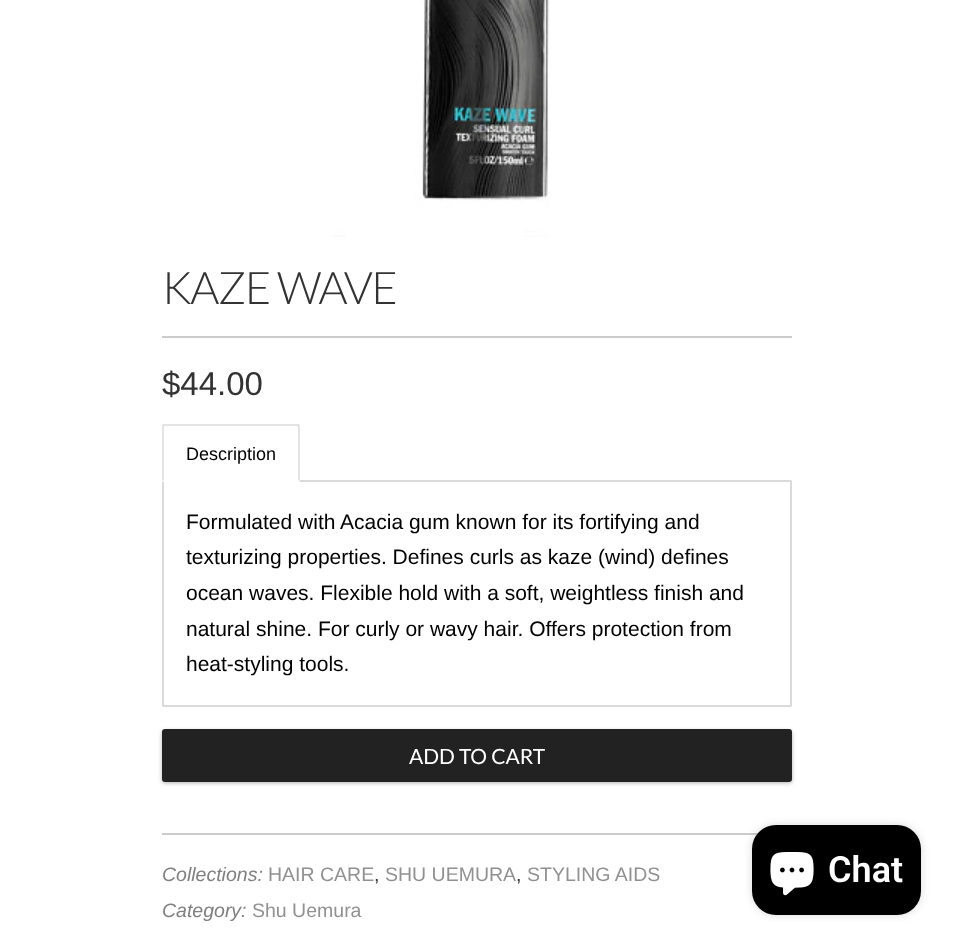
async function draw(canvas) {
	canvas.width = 953;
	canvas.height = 946;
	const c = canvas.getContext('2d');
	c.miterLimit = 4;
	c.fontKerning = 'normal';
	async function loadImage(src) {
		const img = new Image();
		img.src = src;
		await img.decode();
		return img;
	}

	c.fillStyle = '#fff';
	c.fillRect(0, 0, 953, 946);
	c.drawImage(await loadImage('img1.png'), 333, 0, 217, 237);
	c.fillStyle = '#ccc';
	c.fillRect(162, 336, 630, 2);
	c.letterSpacing = '-1.5px';
	c.font = '300 45px Lato';
	c.fillStyle = '#333';
	c.fillText('KAZE WAVE', 162, 304);
	c.letterSpacing = '0px';
	c.font = '33px Liberation Sans';
	c.fillText('$44.00', 162, 395);
	c.beginPath();
	c.roundRect(163, 481, 628, 225, 0.5);
	c.strokeStyle = '#dbdada';
	c.lineWidth = 2;
	c.stroke();
	c.fillStyle = '#fff';
	c.beginPath();
	c.roundRect(162, 425, 138, 57, 1.5);
	c.fill();
	c.beginPath();
	c.moveTo(163, 480.5);
	c.lineTo(163, 426);
	c.lineTo(163.5, 425);
	c.lineTo(298.5, 425);
	c.lineTo(299, 426);
	c.lineTo(299, 480.5);
	c.lineWidth = 1.5;
	c.stroke();
	c.font = '18px Liberation Sans';
	c.fillStyle = '#000';
	c.fillText('Description', 186, 460);
	c.font = '21px Liberation Sans';
	for (const [text, x, y] of [
		['Formulated with Acacia gum known for its fortifying and', 186, 529],
		['texturizing properties. Defines curls as kaze (wind) defines', 186, 564],
		['ocean waves. Flexible hold with a soft, weightless finish and', 186, 600],
		['natural shine. For curly or wavy hair. Offers protection from', 186, 636],
		['heat-styling tools.', 186, 671],
	]) {
		c.fillText(text, x, y);
	}
	c.fillStyle = '#0000004d';
	c.filter = 'blur(2px)';
	c.beginPath();
	c.roundRect(162, 731, 630, 52, 3);
	c.fill();
	c.filter = 'none';
	c.fillStyle = '#222';
	c.beginPath();
	c.roundRect(162, 729, 630, 53, 3);
	c.fill();
	c.font = '21px Lato';
	c.fillStyle = '#fff';
	c.fillText('ADD TO CART', 409, 764);
	c.fillStyle = '#ccc';
	c.fillRect(162, 833, 597, 2);
	c.font = 'italic 19.5px Liberation Sans';
	c.fillStyle = '#808080';
	c.fillText('Collections:', 162, 881);
	c.font = '19.5px Liberation Sans';
	c.fillStyle = '#919191';
	c.fillText('HAIR CARE', 268, 881);
	c.fillStyle = '#333';
	c.fillText(',', 374, 881);
	c.fillStyle = '#919191';
	c.fillText('SHU UEMURA', 385, 881);
	c.fillStyle = '#333';
	c.fillText(',', 516, 881);
	c.fillStyle = '#919191';
	c.fillText('STYLING AIDS', 527, 881);
	c.font = 'italic 19.5px Liberation Sans';
	c.fillStyle = '#808080';
	c.fillText('Category:', 162, 917);
	c.font = '19.5px Liberation Sans';
	c.fillStyle = '#919191';
	c.fillText('Shu Uemura', 252, 917);
	c.fillStyle = '#00000026';
	c.filter = 'blur(4px)';
	c.beginPath();
	c.roundRect(752, 825, 169, 90, 24);
	c.fill();
	c.filter = 'none';
	c.fillStyle = '#000';
	c.beginPath();
	c.roundRect(752, 825, 169, 90, 24);
	c.fill();
	c.drawImage(await loadImage('img2.png'), 770, 852, 44, 44);
	c.font = '600 36px Roboto';
	c.fillStyle = '#fff';
	c.fillText('Chat', 828, 882);
}

draw(document.querySelector('canvas'));
